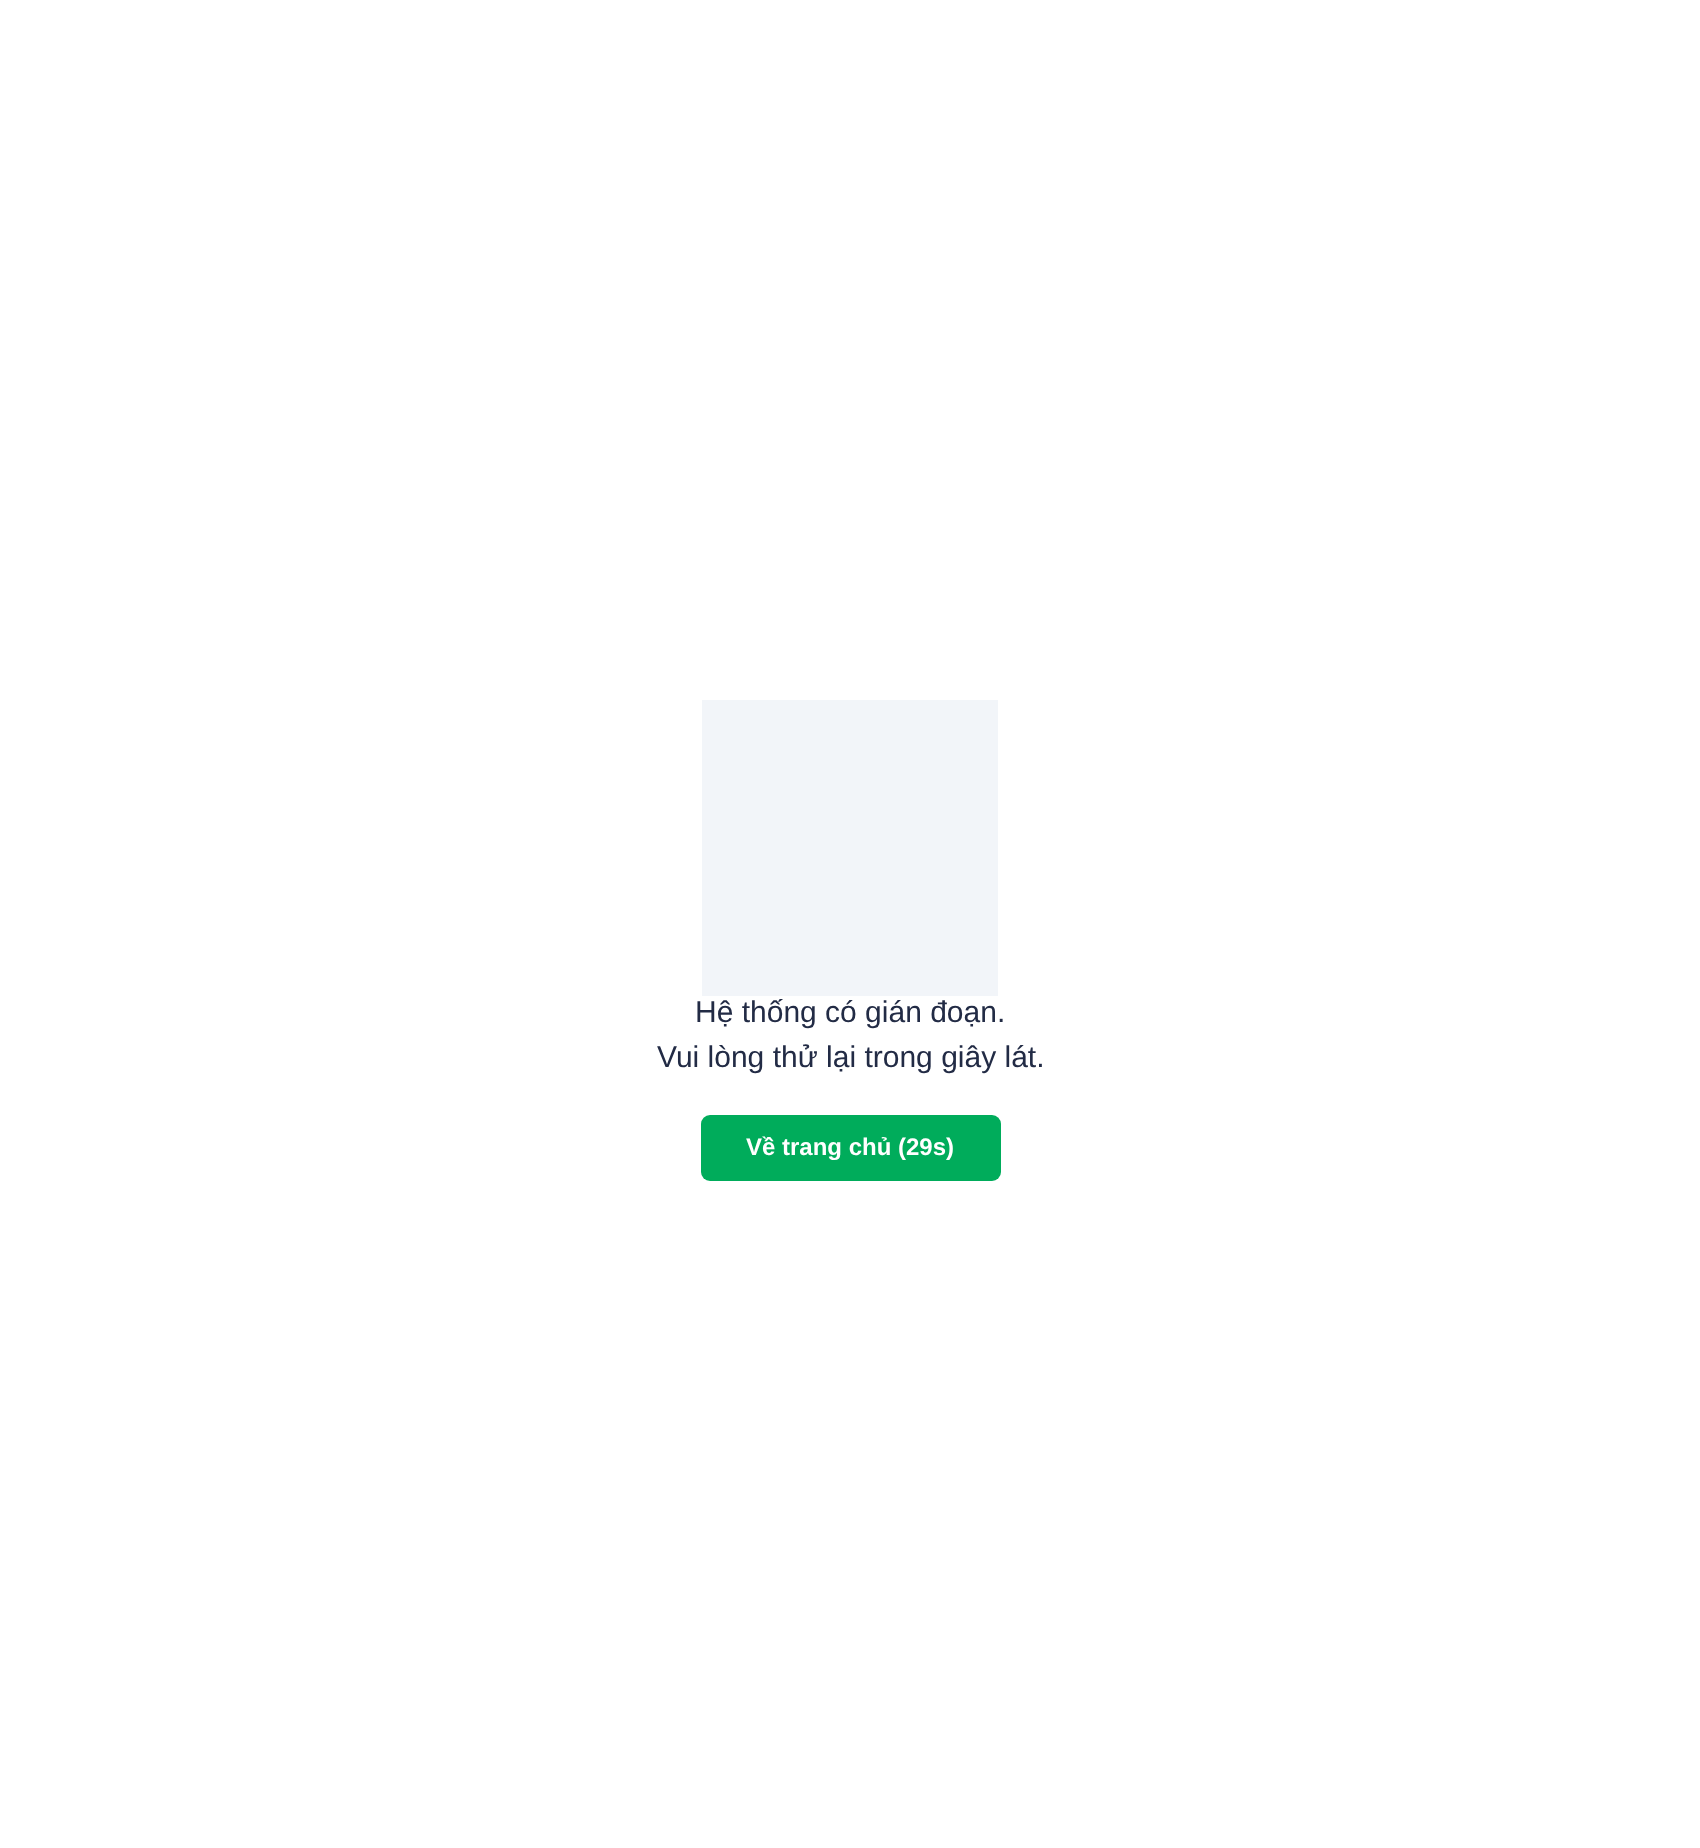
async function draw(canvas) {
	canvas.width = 1700;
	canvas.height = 1848;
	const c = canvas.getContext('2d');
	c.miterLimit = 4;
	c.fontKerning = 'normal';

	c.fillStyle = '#fff';
	c.fillRect(0, 0, 1700, 1848);
	c.fillStyle = '#f2f5f9';
	c.fillRect(702, 700, 296, 296);
	c.font = '30px Liberation Sans';
	c.fillStyle = '#222b45';
	c.fillText('Hệ thống có gián đoạn.', 695, 1022);
	c.fillText('Vui lòng thử lại trong giây lát.', 657, 1067);
	c.fillStyle = '#00ac5b';
	c.beginPath();
	c.roundRect(701, 1115, 300, 66, 9);
	c.fill();
	c.font = 'bold 24px Liberation Sans';
	c.fillStyle = '#fff';
	c.fillText('Về trang chủ (29s)', 746, 1155);
}

draw(document.querySelector('canvas'));
